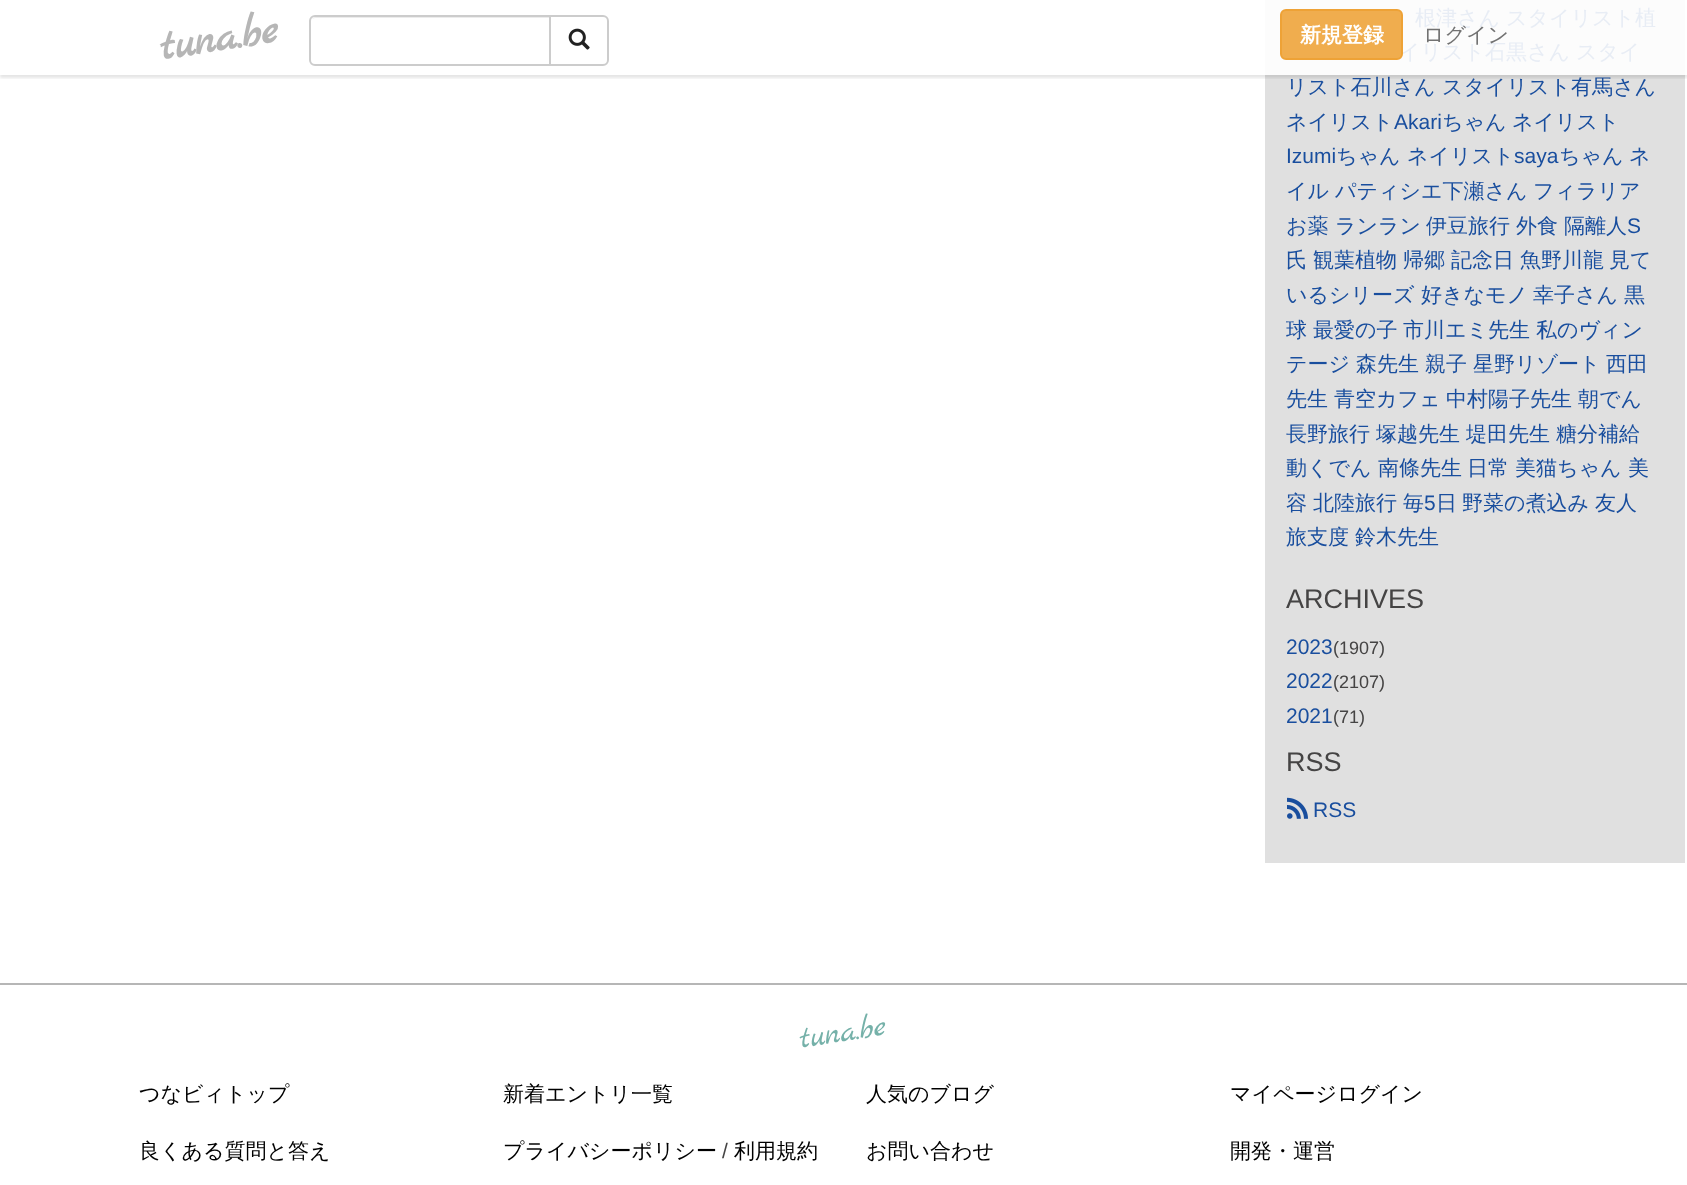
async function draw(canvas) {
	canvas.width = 1687;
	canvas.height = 1185;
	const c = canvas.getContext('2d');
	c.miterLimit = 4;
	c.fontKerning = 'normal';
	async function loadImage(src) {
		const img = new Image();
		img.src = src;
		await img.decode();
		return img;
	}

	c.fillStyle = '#fff';
	c.fillRect(0, 0, 1687, 1185);
	c.fillStyle = '#e0e0e0';
	c.fillRect(1265, 75, 420, 788);
	c.fillStyle = '#fcfcfc';
	c.fillRect(1265, 0, 420, 75);
	c.font = '500 21px WenQuanYi Zen Hei';
	c.fillStyle = '#e8edf5';
	for (const [text, x, y] of [
		['根津さん', 1415, 25],
		['スタイリスト植', 1506, 25],
		['イリスト石黒さん', 1399, 59],
		['スタイ', 1576, 59],
	]) {
		c.fillText(text, x, y);
	}
	c.fillStyle = '#194e9e';
	for (const [text, x, y] of [
		['リスト石川さん', 1286, 94],
		['スタイリスト有馬さん', 1442, 94],
		['ネイリスト', 1286, 129],
	]) {
		c.fillText(text, x, y);
	}
	c.font = '21px Liberation Sans';
	c.fillText('Akari', 1394, 129);
	c.font = '500 21px WenQuanYi Zen Hei';
	c.fillText('ちゃん', 1442, 129);
	c.fillText('ネイリスト', 1512, 129);
	c.font = '21px Liberation Sans';
	c.fillText('Izumi', 1286, 163);
	c.font = '500 21px WenQuanYi Zen Hei';
	c.fillText('ちゃん', 1336, 163);
	c.fillText('ネイリスト', 1407, 163);
	c.font = '21px Liberation Sans';
	c.fillText('saya', 1514, 163);
	c.font = '500 21px WenQuanYi Zen Hei';
	for (const [text, x, y] of [
		['ちゃん', 1559, 163],
		['ネ', 1629, 163],
		['イル', 1286, 198],
		['パティシエ下瀬さん', 1335, 198],
		['フィラリア', 1533, 198],
		['お薬', 1286, 233],
		['ランラン', 1335, 233],
		['伊豆旅行', 1426, 233],
		['外食', 1516, 233],
		['隔離人', 1564, 233],
	]) {
		c.fillText(text, x, y);
	}
	c.font = '21px Liberation Sans';
	c.fillText('S', 1627, 233);
	c.font = '500 21px WenQuanYi Zen Hei';
	for (const [text, x, y] of [
		['氏', 1286, 267],
		['観葉植物', 1313, 267],
		['帰郷', 1403, 267],
		['記念日', 1451, 267],
		['魚野川龍', 1520, 267],
		['見て', 1609, 267],
		['いるシリーズ', 1286, 302],
		['好きなモノ', 1421, 302],
		['幸子さん', 1533, 302],
		['黒', 1624, 302],
		['球', 1286, 337],
		['最愛の子', 1313, 337],
		['市川エミ先生', 1403, 337],
		['私のヴィン', 1536, 337],
		['テージ', 1286, 371],
		['森先生', 1356, 371],
		['親子', 1425, 371],
		['星野リゾート', 1473, 371],
		['西田', 1606, 371],
		['先生', 1286, 406],
		['青空カフェ', 1334, 406],
		['中村陽子先生', 1446, 406],
		['朝でん', 1578, 406],
		['長野旅行', 1286, 441],
		['塚越先生', 1376, 441],
		['堤田先生', 1466, 441],
		['糖分補給', 1556, 441],
		['動くでん', 1286, 475],
		['南條先生', 1378, 475],
		['日常', 1467, 475],
		['美猫ちゃん', 1515, 475],
		['美', 1628, 475],
		['容', 1286, 510],
		['北陸旅行', 1313, 510],
		['毎', 1403, 510],
	]) {
		c.fillText(text, x, y);
	}
	c.font = '21px Liberation Sans';
	c.fillText('5', 1424, 510);
	c.font = '500 21px WenQuanYi Zen Hei';
	for (const [text, x, y] of [
		['日', 1436, 510],
		['野菜の煮込み', 1462, 510],
		['友人', 1595, 510],
		['旅支度', 1286, 544],
		['鈴木先生', 1355, 544],
	]) {
		c.fillText(text, x, y);
	}
	c.font = '27px Liberation Sans';
	c.fillStyle = '#454444';
	c.fillText('ARCHIVES', 1286, 608);
	c.font = '21px Liberation Sans';
	c.fillStyle = '#194e9e';
	c.fillText('2023', 1286, 654);
	c.font = '18px Liberation Sans';
	c.fillStyle = '#454444';
	c.fillText('(1907)', 1333, 654);
	c.font = '21px Liberation Sans';
	c.fillStyle = '#194e9e';
	c.fillText('2022', 1286, 688);
	c.font = '18px Liberation Sans';
	c.fillStyle = '#454444';
	c.fillText('(2107)', 1333, 688);
	c.font = '21px Liberation Sans';
	c.fillStyle = '#194e9e';
	c.fillText('2021', 1286, 723);
	c.font = '18px Liberation Sans';
	c.fillStyle = '#454444';
	c.fillText('(71)', 1333, 723);
	c.font = '27px Liberation Sans';
	c.fillText('RSS', 1286, 771);
	c.drawImage(await loadImage('img1.png'), 1287, 797, 21, 22);
	c.font = '21px Liberation Sans';
	c.fillStyle = '#194e9e';
	c.fillText('RSS', 1313, 817);
	c.save();
	c.beginPath();
	c.rect(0, 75, 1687, 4);
	c.clip();
	c.fillStyle = '#0000001a';
	c.filter = 'blur(1.5px)';
	c.beginPath();
	c.rect(0, 3, 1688, 75);
	c.fill();
	c.filter = 'none';
	c.restore();
	c.font = 'bold 45px Marck Script';
	c.fillStyle = '#b6b6b6';
	c.save();
	c.translate(162, 60);
	c.rotate(-9 * Math.PI / 180);
	c.fillText('tuna.be', 0, 0);
	c.restore();
	c.fillStyle = '#ececec';
	c.beginPath();
	c.moveTo(315, 18);
	c.lineTo(549, 18);
	c.lineTo(549, 17);
	c.lineTo(316, 17);
	c.bezierCurveTo(314, 17, 313, 18, 312, 19);
	c.closePath();
	c.fill();
	c.beginPath();
	c.roundRect(310, 16, 240, 49, [5, 0, 0, 5]);
	c.strokeStyle = '#ccc';
	c.lineWidth = 2;
	c.stroke();
	c.fillStyle = '#fff';
	c.beginPath();
	c.roundRect(550, 16, 58, 49, [0, 5, 5, 0]);
	c.fill();
	c.stroke();
	c.drawImage(await loadImage('img2.png'), 568, 28, 22, 22);
	c.fillStyle = '#f0ad4e';
	c.beginPath();
	c.roundRect(1281, 10, 121, 49, 5);
	c.fill();
	c.strokeStyle = '#eea236';
	c.stroke();
	c.font = 'bold 21px WenQuanYi Zen Hei';
	c.fillStyle = '#fff';
	c.fillText('新規登録', 1300, 42);
	c.font = '500 21px WenQuanYi Zen Hei';
	c.fillStyle = '#727272';
	c.fillText('ログイン', 1423, 42);
	c.fillStyle = '#b6b6b6';
	c.fillRect(0, 983, 1687, 2);
	c.font = '33px Marck Script';
	c.fillStyle = '#75b1a9';
	c.save();
	c.translate(801, 1048);
	c.rotate(-9 * Math.PI / 180);
	c.fillText('tuna.be', 0, 0);
	c.restore();
	c.font = '500 21px WenQuanYi Zen Hei';
	c.fillStyle = '#000';
	for (const [text, x, y] of [
		['つなビィトップ', 139, 1101],
		['新着エントリ一覧', 503, 1101],
		['人気のブログ', 866, 1101],
		['マイページログイン', 1230, 1101],
		['良くある質問と答え', 139, 1158],
		['プライバシーポリシー', 503, 1158],
	]) {
		c.fillText(text, x, y);
	}
	c.font = '21px Liberation Sans';
	c.fillStyle = '#454444';
	c.fillText('/', 722, 1158);
	c.font = '500 21px WenQuanYi Zen Hei';
	c.fillStyle = '#000';
	for (const [text, x, y] of [
		['利用規約', 734, 1158],
		['お問い合わせ', 866, 1158],
		['開発・運営', 1230, 1158],
	]) {
		c.fillText(text, x, y);
	}
}

draw(document.querySelector('canvas'));
